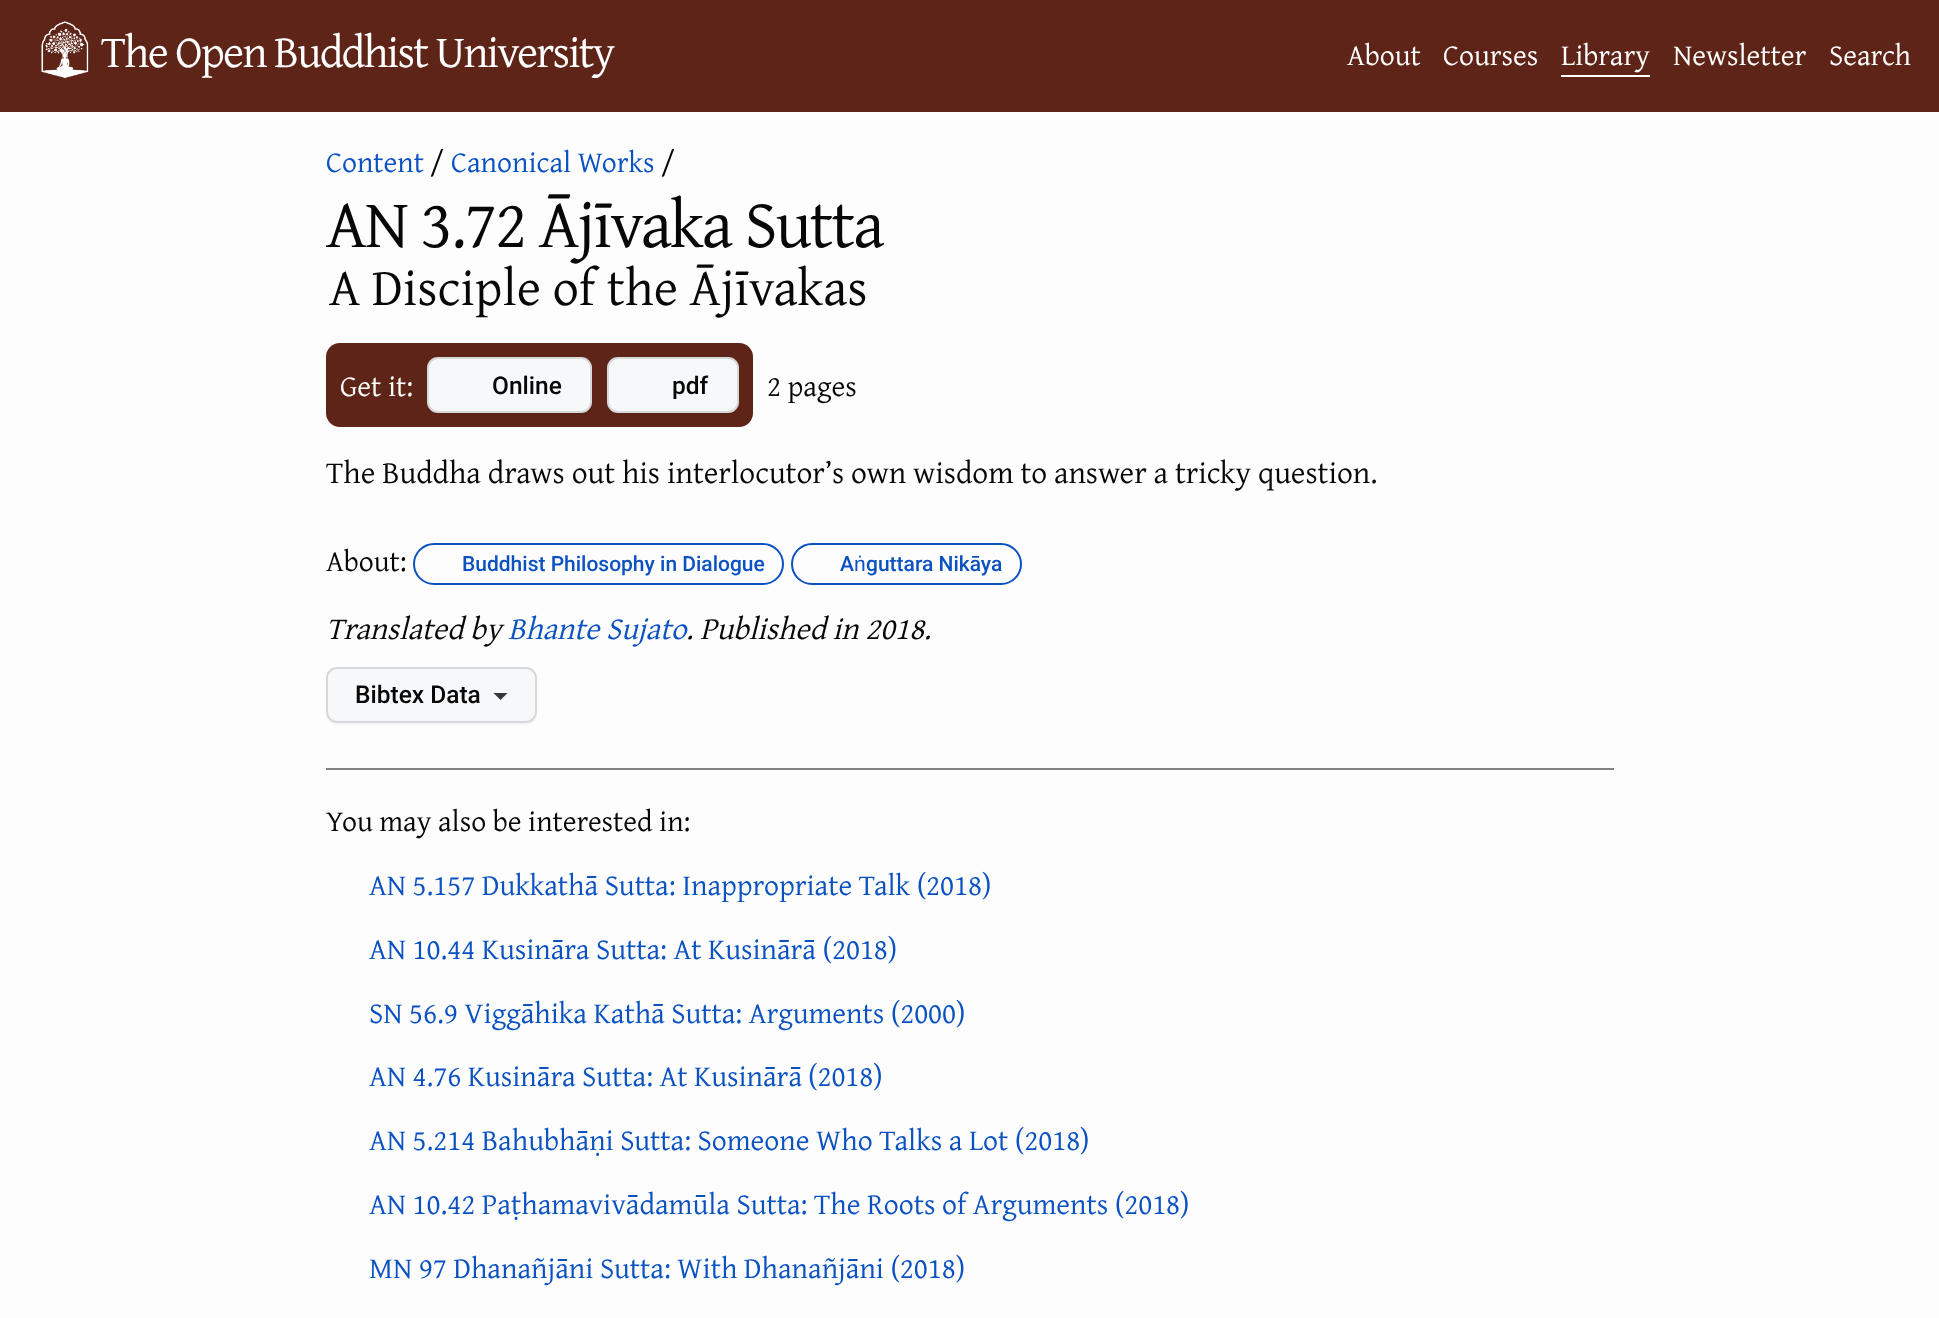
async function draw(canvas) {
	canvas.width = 1939;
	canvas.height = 1318;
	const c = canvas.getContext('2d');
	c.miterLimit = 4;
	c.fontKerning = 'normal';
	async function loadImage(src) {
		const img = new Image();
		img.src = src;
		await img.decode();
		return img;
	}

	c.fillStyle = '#fdfdfd';
	c.fillRect(0, 0, 1939, 1318);
	c.fillStyle = '#5e2417';
	c.fillRect(0, 0, 1939, 112);
	c.drawImage(await loadImage('img1.png'), 41, 21, 48, 57);
	c.letterSpacing = '-1.75px';
	c.font = '45.5px Gentium Plus';
	c.fillStyle = '#fff';
	c.fillText('The Open Buddhist University', 101, 67);
	c.letterSpacing = '0px';
	c.font = '29.75px Gentium Plus';
	for (const [text, x, y] of [
		['About', 1347, 65],
		['Courses', 1443, 65],
		['Library', 1561, 65],
	]) {
		c.fillText(text, x, y);
	}
	c.fillRect(1561, 75, 89, 2);
	c.fillText('Newsletter', 1673, 65);
	c.fillText('Search', 1829, 65);
	c.fillStyle = '#0a51c2';
	c.fillText('Content', 326, 172);
	c.fillStyle = '#070707';
	c.fillText('/', 430, 172);
	c.fillStyle = '#0a51c2';
	c.fillText('Canonical Works', 451, 172);
	c.fillStyle = '#070707';
	c.fillText('/', 661, 172);
	c.letterSpacing = '-1.75px';
	c.font = '68.25px Gentium Plus';
	c.fillText('AN 3.72 Ājīvaka Sutta', 326, 247);
	c.letterSpacing = '0px';
	c.font = '52.5px Gentium Plus';
	c.fillText('A Disciple of the Ājīvakas', 329, 305);
	c.fillStyle = '#5e2417';
	c.beginPath();
	c.roundRect(326, 343, 427, 84, 14);
	c.fill();
	c.font = '29.75px Gentium Plus';
	c.fillStyle = '#fff';
	c.fillText('Get it:', 340, 396);
	c.fillStyle = '#5b2418';
	c.beginPath();
	c.moveTo(427, 402);
	c.lineTo(427, 404);
	c.bezierCurveTo(427, 410, 432, 415, 438, 415);
	c.lineTo(581, 415);
	c.bezierCurveTo(587, 415, 592, 410, 592, 404);
	c.lineTo(592, 370);
	c.lineTo(591, 367);
	c.lineTo(591, 405);
	c.bezierCurveTo(588, 418, 563, 413, 557, 413);
	c.lineTo(438, 413);
	c.bezierCurveTo(432, 413, 427, 408, 427, 402);
	c.closePath();
	c.fill();
	c.fillStyle = '#f6f8fa';
	c.beginPath();
	c.roundRect(427, 357, 165, 56, 11);
	c.fill();
	c.beginPath();
	c.roundRect(428, 358, 163, 54, 10);
	c.strokeStyle = '#1f232826';
	c.lineWidth = 2;
	c.stroke();
	c.font = '500 24.5px Roboto';
	c.fillStyle = '#070707';
	c.fillText('Online', 492, 394);
	c.fillStyle = '#5b2418';
	c.beginPath();
	c.moveTo(607, 368);
	c.lineTo(607, 404);
	c.bezierCurveTo(607, 410, 612, 415, 618, 415);
	c.lineTo(728, 415);
	c.bezierCurveTo(734, 415, 739, 410, 739, 404);
	c.lineTo(739, 370);
	c.lineTo(738, 367);
	c.lineTo(738, 402);
	c.bezierCurveTo(738, 408, 734, 413, 728, 413);
	c.lineTo(618, 413);
	c.bezierCurveTo(612, 413, 607, 408, 607, 402);
	c.closePath();
	c.fill();
	c.fillStyle = '#f6f8fa';
	c.beginPath();
	c.roundRect(607, 357, 132, 56, 11);
	c.fill();
	c.beginPath();
	c.roundRect(608, 358, 130, 54, 10);
	c.stroke();
	c.fillStyle = '#070707';
	c.fillText('pdf', 672, 394);
	c.font = '29.75px Gentium Plus';
	c.fillText('2 pages', 767, 396);
	c.font = '31.5px Gentium Plus';
	c.fillText('The Buddha draws out his interlocutor’s own wisdom to answer a tricky question.', 326, 483);
	c.font = '29.75px Gentium Plus';
	c.fillText('About:', 326, 571);
	c.beginPath();
	c.roundRect(414, 544, 369, 40, 20);
	c.strokeStyle = '#0a51c2';
	c.stroke();
	c.font = '500 21px Roboto';
	c.fillStyle = '#0a51c2';
	c.fillText('Buddhist Philosophy in Dialogue', 462, 571);
	c.beginPath();
	c.roundRect(792, 544, 229, 40, 20);
	c.stroke();
	c.fillText('A', 840, 571);
	c.font = '21px Liberation Sans';
	c.fillText('ṅ', 854, 571);
	c.font = '500 21px Roboto';
	c.fillText('guttara Nikāya', 866, 571);
	c.font = 'italic 31.25px Gentium Plus';
	c.fillStyle = '#070707';
	c.fillText('Translated by', 326, 639);
	c.fillStyle = '#0a51c2';
	c.fillText('Bhante Sujato', 508, 639);
	c.fillStyle = '#070707';
	c.fillText('. Published in 2018.', 686, 639);
	c.fillStyle = '#f4f4f4';
	c.beginPath();
	c.moveTo(326, 716);
	c.bezierCurveTo(327, 721, 332, 725, 337, 725);
	c.lineTo(526, 725);
	c.bezierCurveTo(532, 725, 537, 720, 537, 715);
	c.bezierCurveTo(536, 719, 532, 723, 527, 723);
	c.lineTo(336, 723);
	c.bezierCurveTo(332, 723, 328, 720, 326, 716);
	c.closePath();
	c.fill();
	c.fillStyle = '#f6f8fa';
	c.beginPath();
	c.roundRect(327, 668, 209, 54, 10);
	c.fill();
	c.strokeStyle = '#d6d8db';
	c.stroke();
	c.font = '500 24.5px Roboto';
	c.fillStyle = '#070707';
	c.fillText('Bibtex Data', 355, 703);
	c.fillStyle = '#373738';
	c.beginPath();
	c.moveTo(493.5, 693);
	c.lineTo(507.5, 693);
	c.lineTo(500.5, 700);
	c.closePath();
	c.fill();
	c.fillStyle = '#828282';
	c.fillRect(326, 768, 1288, 2);
	c.font = '29.75px Gentium Plus';
	c.fillStyle = '#070707';
	c.fillText('You may also be interested in:', 326, 831);
	c.fillStyle = '#0a51c2';
	for (const [text, x, y] of [
		['AN 5.157 Dukkathā Sutta: Inappropriate Talk (2018)', 369, 895],
		['AN 10.44 Kusināra Sutta: At Kusinārā (2018)', 369, 959],
		['SN 56.9 Viggāhika Kathā Sutta: Arguments (2000)', 369, 1023],
		['AN 4.76 Kusināra Sutta: At Kusinārā', 369, 1086],
		['(2018)', 808, 1086],
		['AN 5.214 Bahubhāṇi Sutta: Someone Who Talks a Lot (2018)', 369, 1150],
		['AN 10.42 Paṭhamavivādamūla Sutta: The Roots of Arguments (2018)', 369, 1214],
		['MN 97 Dhanañjāni Sutta: With Dhanañjāni (2018)', 369, 1278],
	]) {
		c.fillText(text, x, y);
	}
}

draw(document.querySelector('canvas'));
